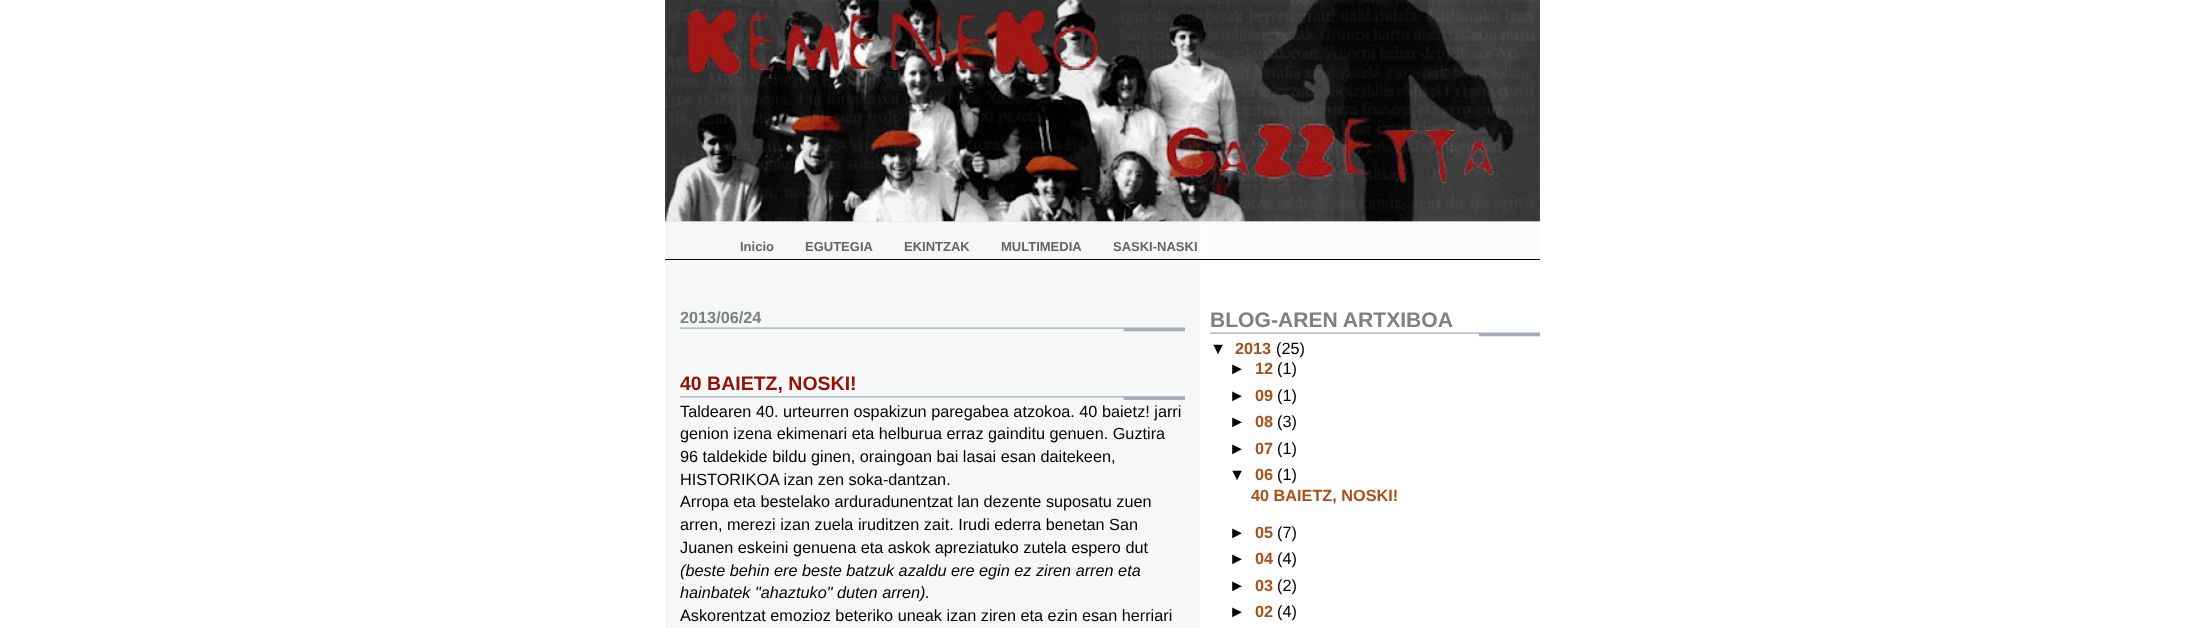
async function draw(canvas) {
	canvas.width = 2205;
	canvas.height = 628;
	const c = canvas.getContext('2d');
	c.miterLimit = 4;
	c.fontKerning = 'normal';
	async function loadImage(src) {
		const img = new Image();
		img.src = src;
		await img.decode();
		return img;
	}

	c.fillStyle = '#fff';
	c.fillRect(0, 0, 2205, 628);
	c.drawImage(await loadImage('img1.png'), 665, 221, 875, 407);
	c.drawImage(await loadImage('img2.png'), 665, 221, 875, 1);
	c.drawImage(await loadImage('img3.png'), 665, 221, 875, 1);
	c.drawImage(await loadImage('img4.png'), 665, 0, 875, 222);
	c.fillStyle = '#000';
	c.fillRect(665, 259, 875, 1);
	c.font = 'bold 13px Liberation Sans';
	c.fillStyle = '#666';
	for (const [text, x, y] of [
		['Inicio', 740, 251],
		['EGUTEGIA', 805, 251],
		['EKINTZAK', 904, 251],
		['MULTIMEDIA', 1001, 251],
		['SASKI-NASKI', 1113, 251],
	]) {
		c.fillText(text, x, y);
	}
	c.fillStyle = '#fff';
	c.fillRect(665, 260, 535, 1);
	c.drawImage(await loadImage('img5.png'), 680, 327, 505, 5);
	c.font = 'bold 16.25px Liberation Sans';
	c.fillStyle = '#7b8186';
	c.fillText('2013/06/24', 680, 323);
	c.drawImage(await loadImage('img6.png'), 680, 396, 505, 4);
	c.font = 'bold 19.5px Liberation Sans';
	c.fillStyle = '#940f04';
	c.fillText('40 BAIETZ, NOSKI!', 680, 390);
	c.font = '16.25px Liberation Sans';
	c.fillStyle = '#000';
	for (const [text, x, y] of [
		['Taldearen 40. urteurren ospakizun paregabea atzokoa. 40 baietz! jarri', 680, 417],
		['genion izena ekimenari eta helburua erraz gainditu genuen. Guztira', 680, 439],
		['96 taldekide bildu ginen, oraingoan bai lasai esan daitekeen,', 680, 462],
		['HISTORIKOA izan zen soka-dantzan.', 680, 485],
		['Arropa eta bestelako arduradunentzat lan dezente suposatu zuen', 680, 507],
		['arren, merezi izan zuela iruditzen zait. Irudi ederra benetan San', 680, 530],
		['Juanen eskeini genuena eta askok apreziatuko zutela espero dut', 680, 553],
	]) {
		c.fillText(text, x, y);
	}
	c.font = 'italic 16.25px Liberation Sans';
	c.fillText('(beste behin ere beste batzuk azaldu ere egin ez ziren arren eta', 680, 576);
	c.fillText('hainbatek "ahaztuko" duten arren).', 680, 598);
	c.font = '16.25px Liberation Sans';
	c.fillText('Askorentzat emozioz beteriko uneak izan ziren eta ezin esan herriari', 680, 621);
	c.fillStyle = '#fff';
	c.fillRect(1201, 260, 339, 368);
	c.drawImage(await loadImage('img7.png'), 1210, 332, 330, 5);
	c.font = 'bold 21.1px Liberation Sans';
	c.fillStyle = '#7b8186';
	c.fillText('BLOG-AREN ARTXIBOA', 1210, 327);
	c.font = 'bold 16.25px Liberation Sans';
	c.fillStyle = '#000';
	c.fillText('▼', 1210, 354);
	c.fillStyle = '#a9501b';
	c.fillText('2013', 1235, 354);
	c.font = '16.25px Liberation Sans';
	c.fillStyle = '#000';
	c.fillText('(25)', 1276, 354);
	c.font = 'bold 16.25px Liberation Sans';
	c.fillText('►', 1229, 374);
	c.fillStyle = '#a9501b';
	c.fillText('12', 1255, 374);
	c.font = '16.25px Liberation Sans';
	c.fillStyle = '#000';
	c.fillText('(1)', 1277, 374);
	c.font = 'bold 16.25px Liberation Sans';
	c.fillText('►', 1229, 401);
	c.fillStyle = '#a9501b';
	c.fillText('09', 1255, 401);
	c.font = '16.25px Liberation Sans';
	c.fillStyle = '#000';
	c.fillText('(1)', 1277, 401);
	c.font = 'bold 16.25px Liberation Sans';
	c.fillText('►', 1229, 427);
	c.fillStyle = '#a9501b';
	c.fillText('08', 1255, 427);
	c.font = '16.25px Liberation Sans';
	c.fillStyle = '#000';
	c.fillText('(3)', 1277, 427);
	c.font = 'bold 16.25px Liberation Sans';
	c.fillText('►', 1229, 454);
	c.fillStyle = '#a9501b';
	c.fillText('07', 1255, 454);
	c.font = '16.25px Liberation Sans';
	c.fillStyle = '#000';
	c.fillText('(1)', 1277, 454);
	c.font = 'bold 16.25px Liberation Sans';
	c.fillText('▼', 1229, 480);
	c.fillStyle = '#a9501b';
	c.fillText('06', 1255, 480);
	c.font = '16.25px Liberation Sans';
	c.fillStyle = '#000';
	c.fillText('(1)', 1277, 480);
	c.font = 'bold 16.25px Liberation Sans';
	c.fillStyle = '#a9501b';
	c.fillText('40 BAIETZ, NOSKI!', 1251, 501);
	c.fillStyle = '#000';
	c.fillText('►', 1229, 538);
	c.fillStyle = '#a9501b';
	c.fillText('05', 1255, 538);
	c.font = '16.25px Liberation Sans';
	c.fillStyle = '#000';
	c.fillText('(7)', 1277, 538);
	c.font = 'bold 16.25px Liberation Sans';
	c.fillText('►', 1229, 564);
	c.fillStyle = '#a9501b';
	c.fillText('04', 1255, 564);
	c.font = '16.25px Liberation Sans';
	c.fillStyle = '#000';
	c.fillText('(4)', 1277, 564);
	c.font = 'bold 16.25px Liberation Sans';
	c.fillText('►', 1229, 591);
	c.fillStyle = '#a9501b';
	c.fillText('03', 1255, 591);
	c.font = '16.25px Liberation Sans';
	c.fillStyle = '#000';
	c.fillText('(2)', 1277, 591);
	c.font = 'bold 16.25px Liberation Sans';
	c.fillText('►', 1229, 617);
	c.fillStyle = '#a9501b';
	c.fillText('02', 1255, 617);
	c.font = '16.25px Liberation Sans';
	c.fillStyle = '#000';
	c.fillText('(4)', 1277, 617);
}

draw(document.querySelector('canvas'));
